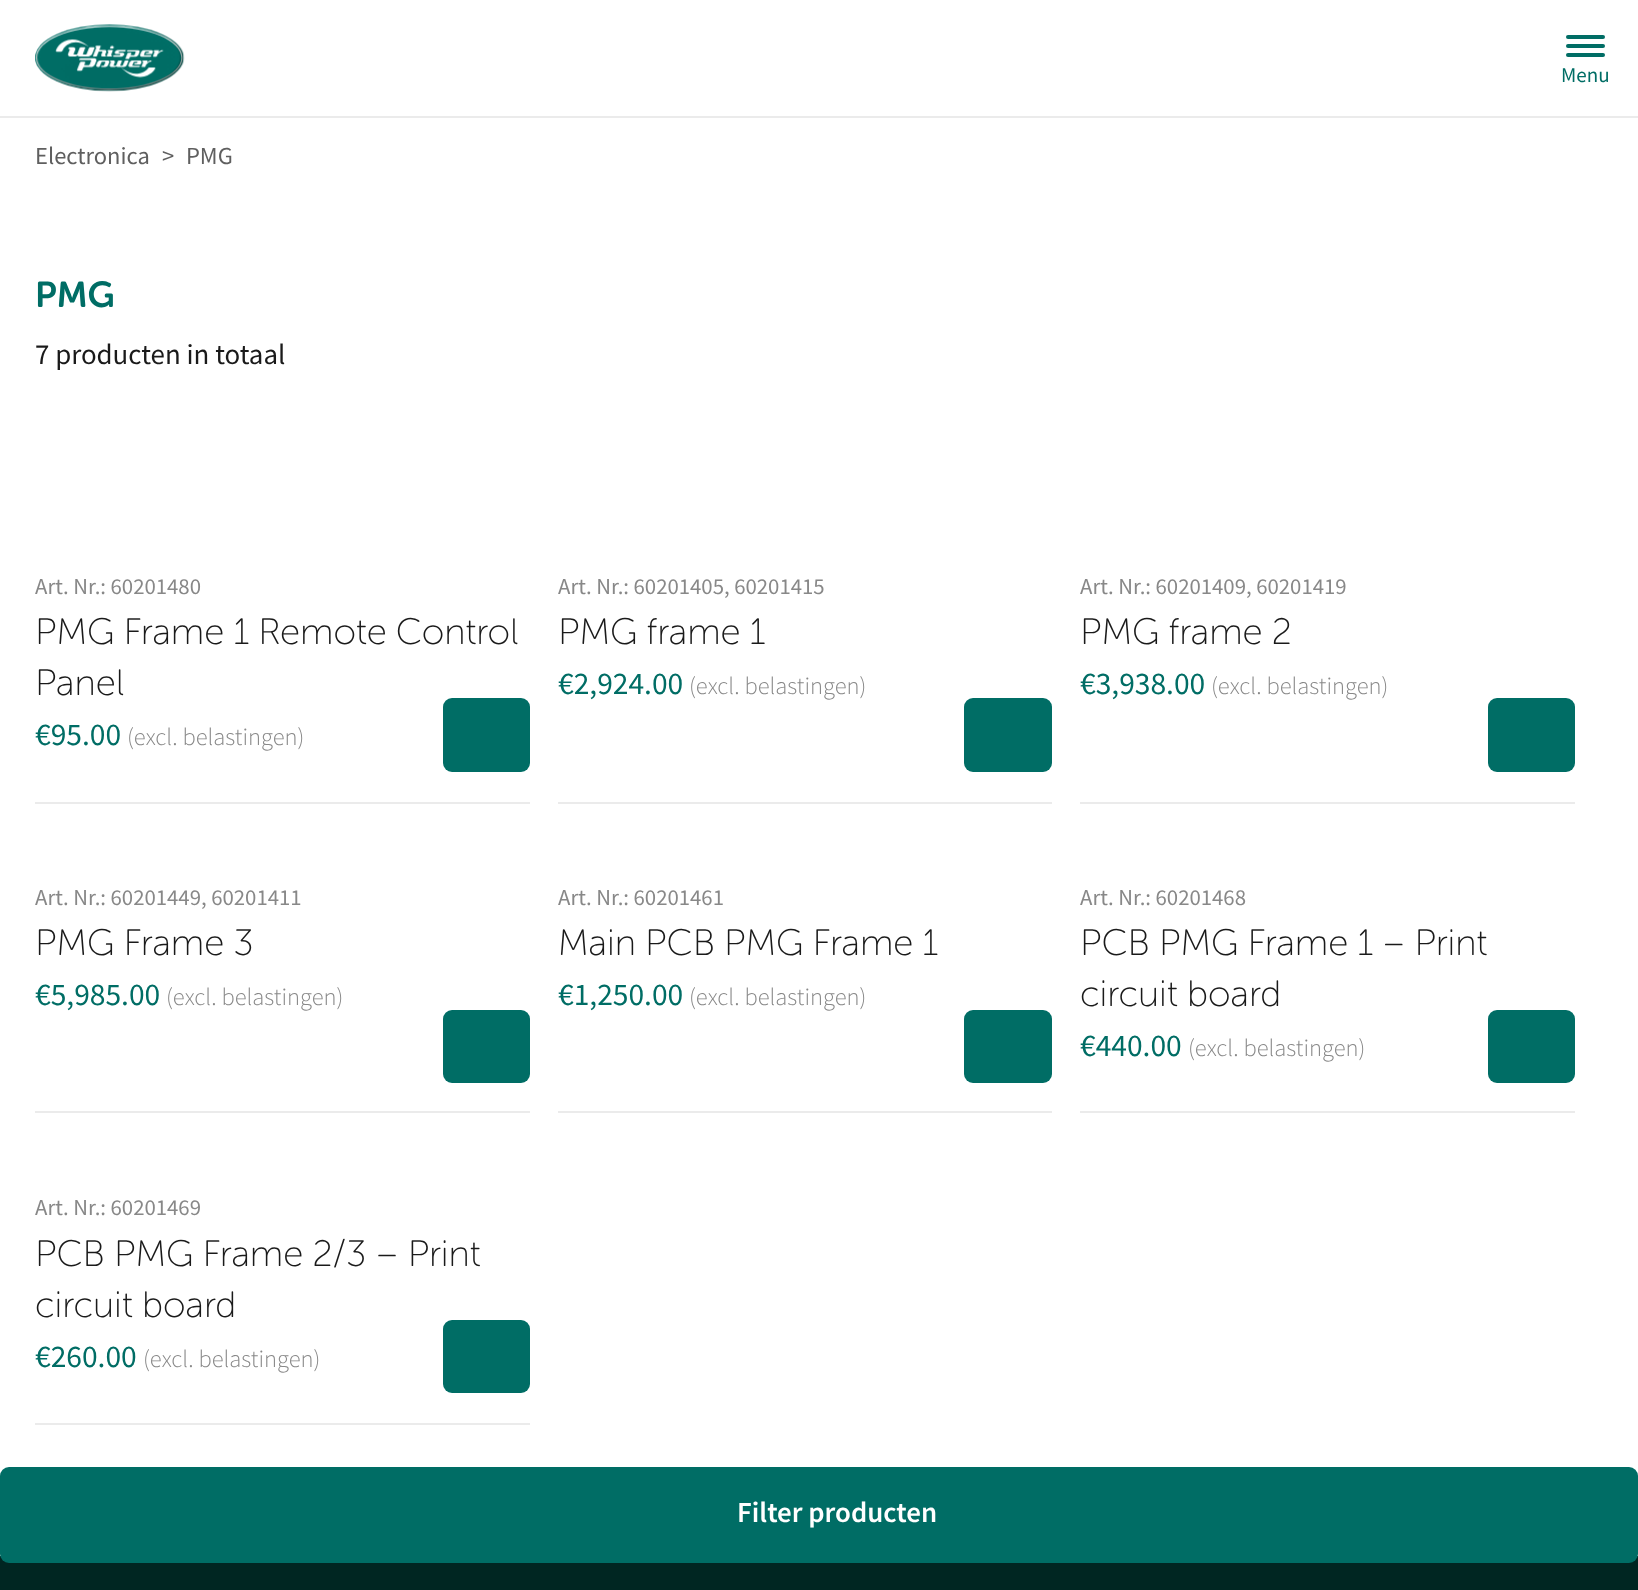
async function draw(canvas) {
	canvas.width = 1638;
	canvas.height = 1590;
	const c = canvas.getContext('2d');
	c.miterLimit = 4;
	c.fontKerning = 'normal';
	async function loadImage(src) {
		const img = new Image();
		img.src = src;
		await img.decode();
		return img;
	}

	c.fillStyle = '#fff';
	c.fillRect(0, 0, 1638, 1590);
	c.fillStyle = '#ebebeb';
	c.fillRect(0, 116, 1638, 2);
	c.drawImage(await loadImage('img1.png'), 35, 24, 150, 68);
	c.fillStyle = '#006d65';
	c.beginPath();
	c.roundRect(1566, 35, 39, 4, 2);
	c.fill();
	c.beginPath();
	c.roundRect(1566, 44, 39, 4, 2);
	c.fill();
	c.beginPath();
	c.roundRect(1566, 53, 39, 4, 2);
	c.fill();
	c.font = '21px Source Sans Pro';
	c.fillText('Menu', 1561, 82);
	c.font = '24.5px Source Sans Pro';
	c.fillStyle = '#5f5f5f';
	for (const [text, x, y] of [
		['Electronica', 35, 164],
		['>', 162, 164],
		['PMG', 186, 164],
	]) {
		c.fillText(text, x, y);
	}
	c.font = '600 36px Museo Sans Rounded';
	c.fillStyle = '#006d65';
	c.fillText('PMG', 35, 307);
	c.font = '28.9px Source Sans Pro';
	c.fillStyle = '#1a1a1a';
	c.fillText('7 producten in totaal', 35, 364);
	c.fillStyle = '#ebebeb';
	c.fillRect(35, 802, 495, 2);
	c.font = '22.75px Source Sans Pro';
	c.fillStyle = '#888';
	c.fillText('Art. Nr.: 60201480', 35, 594);
	c.font = '300 36.75px Museo Sans Rounded';
	c.fillStyle = '#1a1a1a';
	c.fillText('PMG Frame 1 Remote Control', 35, 644);
	c.fillText('Panel', 35, 695);
	c.font = '31.5px Source Sans Pro';
	c.fillStyle = '#006d65';
	c.fillText('€95.00', 35, 745);
	c.font = '300 24.5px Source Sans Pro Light';
	c.fillStyle = '#888';
	c.fillText('(excl. belastingen)', 127, 745);
	c.fillStyle = '#006d65';
	c.beginPath();
	c.roundRect(443, 698, 87, 74, 9);
	c.fill();
	c.fillStyle = '#ebebeb';
	c.fillRect(558, 802, 494, 2);
	c.font = '22.75px Source Sans Pro';
	c.fillStyle = '#888';
	c.fillText('Art. Nr.: 60201405, 60201415', 558, 594);
	c.font = '300 36.75px Museo Sans Rounded';
	c.fillStyle = '#1a1a1a';
	c.fillText('PMG frame 1', 558, 644);
	c.font = '31.5px Source Sans Pro';
	c.fillStyle = '#006d65';
	c.fillText('€2,924.00', 558, 694);
	c.font = '300 24.5px Source Sans Pro Light';
	c.fillStyle = '#888';
	c.fillText('(excl. belastingen)', 689, 694);
	c.fillStyle = '#006d65';
	c.beginPath();
	c.roundRect(964, 698, 88, 74, 9);
	c.fill();
	c.fillStyle = '#ebebeb';
	c.fillRect(1080, 802, 495, 2);
	c.font = '22.75px Source Sans Pro';
	c.fillStyle = '#888';
	c.fillText('Art. Nr.: 60201409, 60201419', 1080, 594);
	c.font = '300 36.75px Museo Sans Rounded';
	c.fillStyle = '#1a1a1a';
	c.fillText('PMG frame 2', 1080, 644);
	c.font = '31.5px Source Sans Pro';
	c.fillStyle = '#006d65';
	c.fillText('€3,938.00', 1080, 694);
	c.font = '300 24.5px Source Sans Pro Light';
	c.fillStyle = '#888';
	c.fillText('(excl. belastingen)', 1211, 694);
	c.fillStyle = '#006d65';
	c.beginPath();
	c.roundRect(1488, 698, 87, 74, 9);
	c.fill();
	c.fillStyle = '#ebebeb';
	c.fillRect(35, 1111, 495, 2);
	c.font = '22.75px Source Sans Pro';
	c.fillStyle = '#888';
	c.fillText('Art. Nr.: 60201449, 60201411', 35, 905);
	c.font = '300 36.75px Museo Sans Rounded';
	c.fillStyle = '#1a1a1a';
	c.fillText('PMG Frame 3', 35, 955);
	c.font = '31.5px Source Sans Pro';
	c.fillStyle = '#006d65';
	c.fillText('€5,985.00', 35, 1005);
	c.font = '300 24.5px Source Sans Pro Light';
	c.fillStyle = '#888';
	c.fillText('(excl. belastingen)', 166, 1005);
	c.fillStyle = '#006d65';
	c.beginPath();
	c.roundRect(443, 1010, 87, 73, 9);
	c.fill();
	c.fillStyle = '#ebebeb';
	c.fillRect(558, 1111, 494, 2);
	c.font = '22.75px Source Sans Pro';
	c.fillStyle = '#888';
	c.fillText('Art. Nr.: 60201461', 558, 905);
	c.font = '300 36.75px Museo Sans Rounded';
	c.fillStyle = '#1a1a1a';
	c.fillText('Main PCB PMG Frame 1', 558, 955);
	c.font = '31.5px Source Sans Pro';
	c.fillStyle = '#006d65';
	c.fillText('€1,250.00', 558, 1005);
	c.font = '300 24.5px Source Sans Pro Light';
	c.fillStyle = '#888';
	c.fillText('(excl. belastingen)', 689, 1005);
	c.fillStyle = '#006d65';
	c.beginPath();
	c.roundRect(964, 1010, 88, 73, 9);
	c.fill();
	c.fillStyle = '#ebebeb';
	c.fillRect(1080, 1111, 495, 2);
	c.font = '22.75px Source Sans Pro';
	c.fillStyle = '#888';
	c.fillText('Art. Nr.: 60201468', 1080, 905);
	c.font = '300 36.75px Museo Sans Rounded';
	c.fillStyle = '#1a1a1a';
	c.fillText('PCB PMG Frame 1 – Print', 1080, 955);
	c.fillText('circuit board', 1080, 1006);
	c.font = '31.5px Source Sans Pro';
	c.fillStyle = '#006d65';
	c.fillText('€440.00', 1080, 1056);
	c.font = '300 24.5px Source Sans Pro Light';
	c.fillStyle = '#888';
	c.fillText('(excl. belastingen)', 1188, 1056);
	c.fillStyle = '#006d65';
	c.beginPath();
	c.roundRect(1488, 1010, 87, 73, 9);
	c.fill();
	c.fillStyle = '#ebebeb';
	c.fillRect(35, 1423, 495, 2);
	c.font = '22.75px Source Sans Pro';
	c.fillStyle = '#888';
	c.fillText('Art. Nr.: 60201469', 35, 1215);
	c.font = '300 36.75px Museo Sans Rounded';
	c.fillStyle = '#1a1a1a';
	c.fillText('PCB PMG Frame 2/3 – Print', 35, 1266);
	c.fillText('circuit board', 35, 1317);
	c.font = '31.5px Source Sans Pro';
	c.fillStyle = '#006d65';
	c.fillText('€260.00', 35, 1367);
	c.font = '300 24.5px Source Sans Pro Light';
	c.fillStyle = '#888';
	c.fillText('(excl. belastingen)', 143, 1367);
	c.fillStyle = '#006d65';
	c.beginPath();
	c.roundRect(443, 1320, 87, 73, 9);
	c.fill();
	c.fillStyle = '#002622';
	c.fillRect(0, 1556, 1638, 34);
	c.fillStyle = '#006d65';
	c.beginPath();
	c.roundRect(0, 1467, 1638, 96, 9);
	c.fill();
	c.font = '600 28.9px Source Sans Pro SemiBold';
	c.fillStyle = '#fff';
	c.fillText('Filter producten', 737, 1522);
}

draw(document.querySelector('canvas'));
